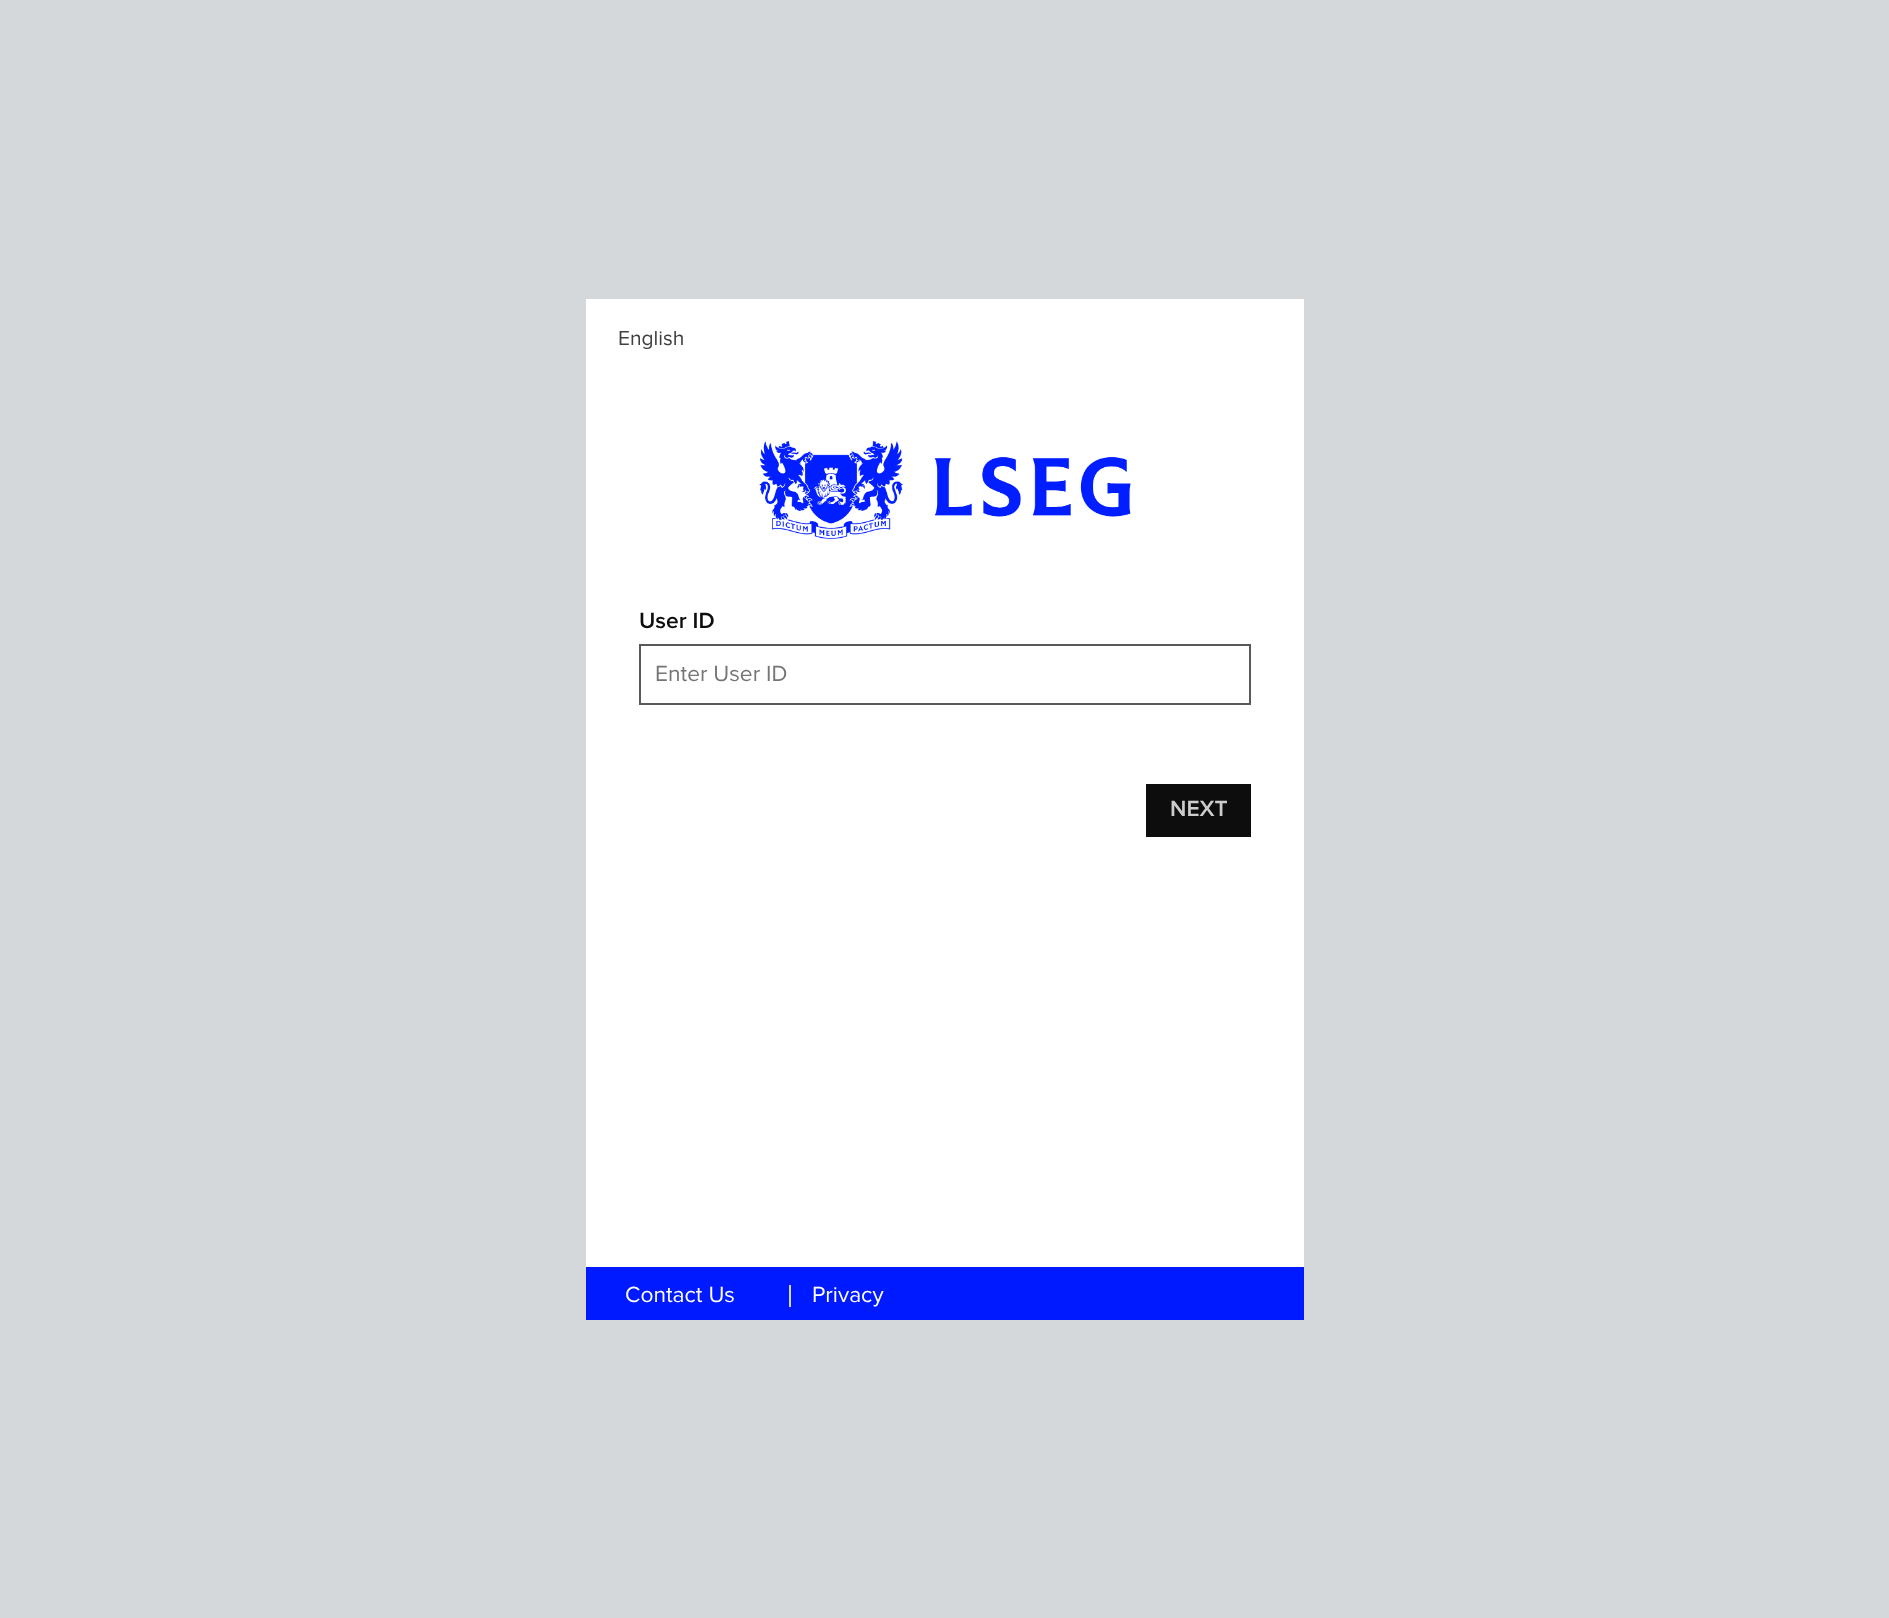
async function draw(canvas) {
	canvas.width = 1889;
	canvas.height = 1618;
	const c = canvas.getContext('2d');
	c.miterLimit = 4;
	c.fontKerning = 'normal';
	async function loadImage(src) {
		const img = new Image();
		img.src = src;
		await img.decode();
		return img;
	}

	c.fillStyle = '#d5d8db';
	c.fillRect(0, 0, 1889, 1618);
	c.fillStyle = '#fff';
	c.fillRect(586, 299, 718, 968);
	c.font = '21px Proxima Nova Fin';
	c.fillStyle = '#404040';
	c.fillText('English', 618, 345);
	c.drawImage(await loadImage('img1.png'), 759, 441, 372, 98);
	c.font = '600 22.75px Proxima Nova Fin';
	c.fillStyle = '#0d0d0d';
	c.fillText('User ID', 639, 628);
	c.strokeStyle = '#595959';
	c.lineWidth = 2;
	c.strokeRect(640, 645, 610, 59);
	c.font = '22.75px Proxima Nova Fin';
	c.fillStyle = '#757575';
	c.fillText('Enter User ID', 655, 681);
	c.fillStyle = '#0d0d0d';
	c.fillRect(1146, 784, 105, 53);
	c.font = '600 22.75px Proxima Nova Fin';
	c.fillStyle = '#ccc';
	c.fillText('NEXT', 1170, 816);
	c.fillStyle = '#001aff';
	c.fillRect(586, 1267, 718, 53);
	c.font = '22.75px Proxima Nova Fin';
	c.fillStyle = '#fff';
	c.fillText('Contact Us', 625, 1302);
	c.fillStyle = '#d5d8db';
	c.fillRect(789, 1285, 2, 22);
	c.fillStyle = '#fff';
	c.fillText('Privacy', 812, 1302);
}

draw(document.querySelector('canvas'));
